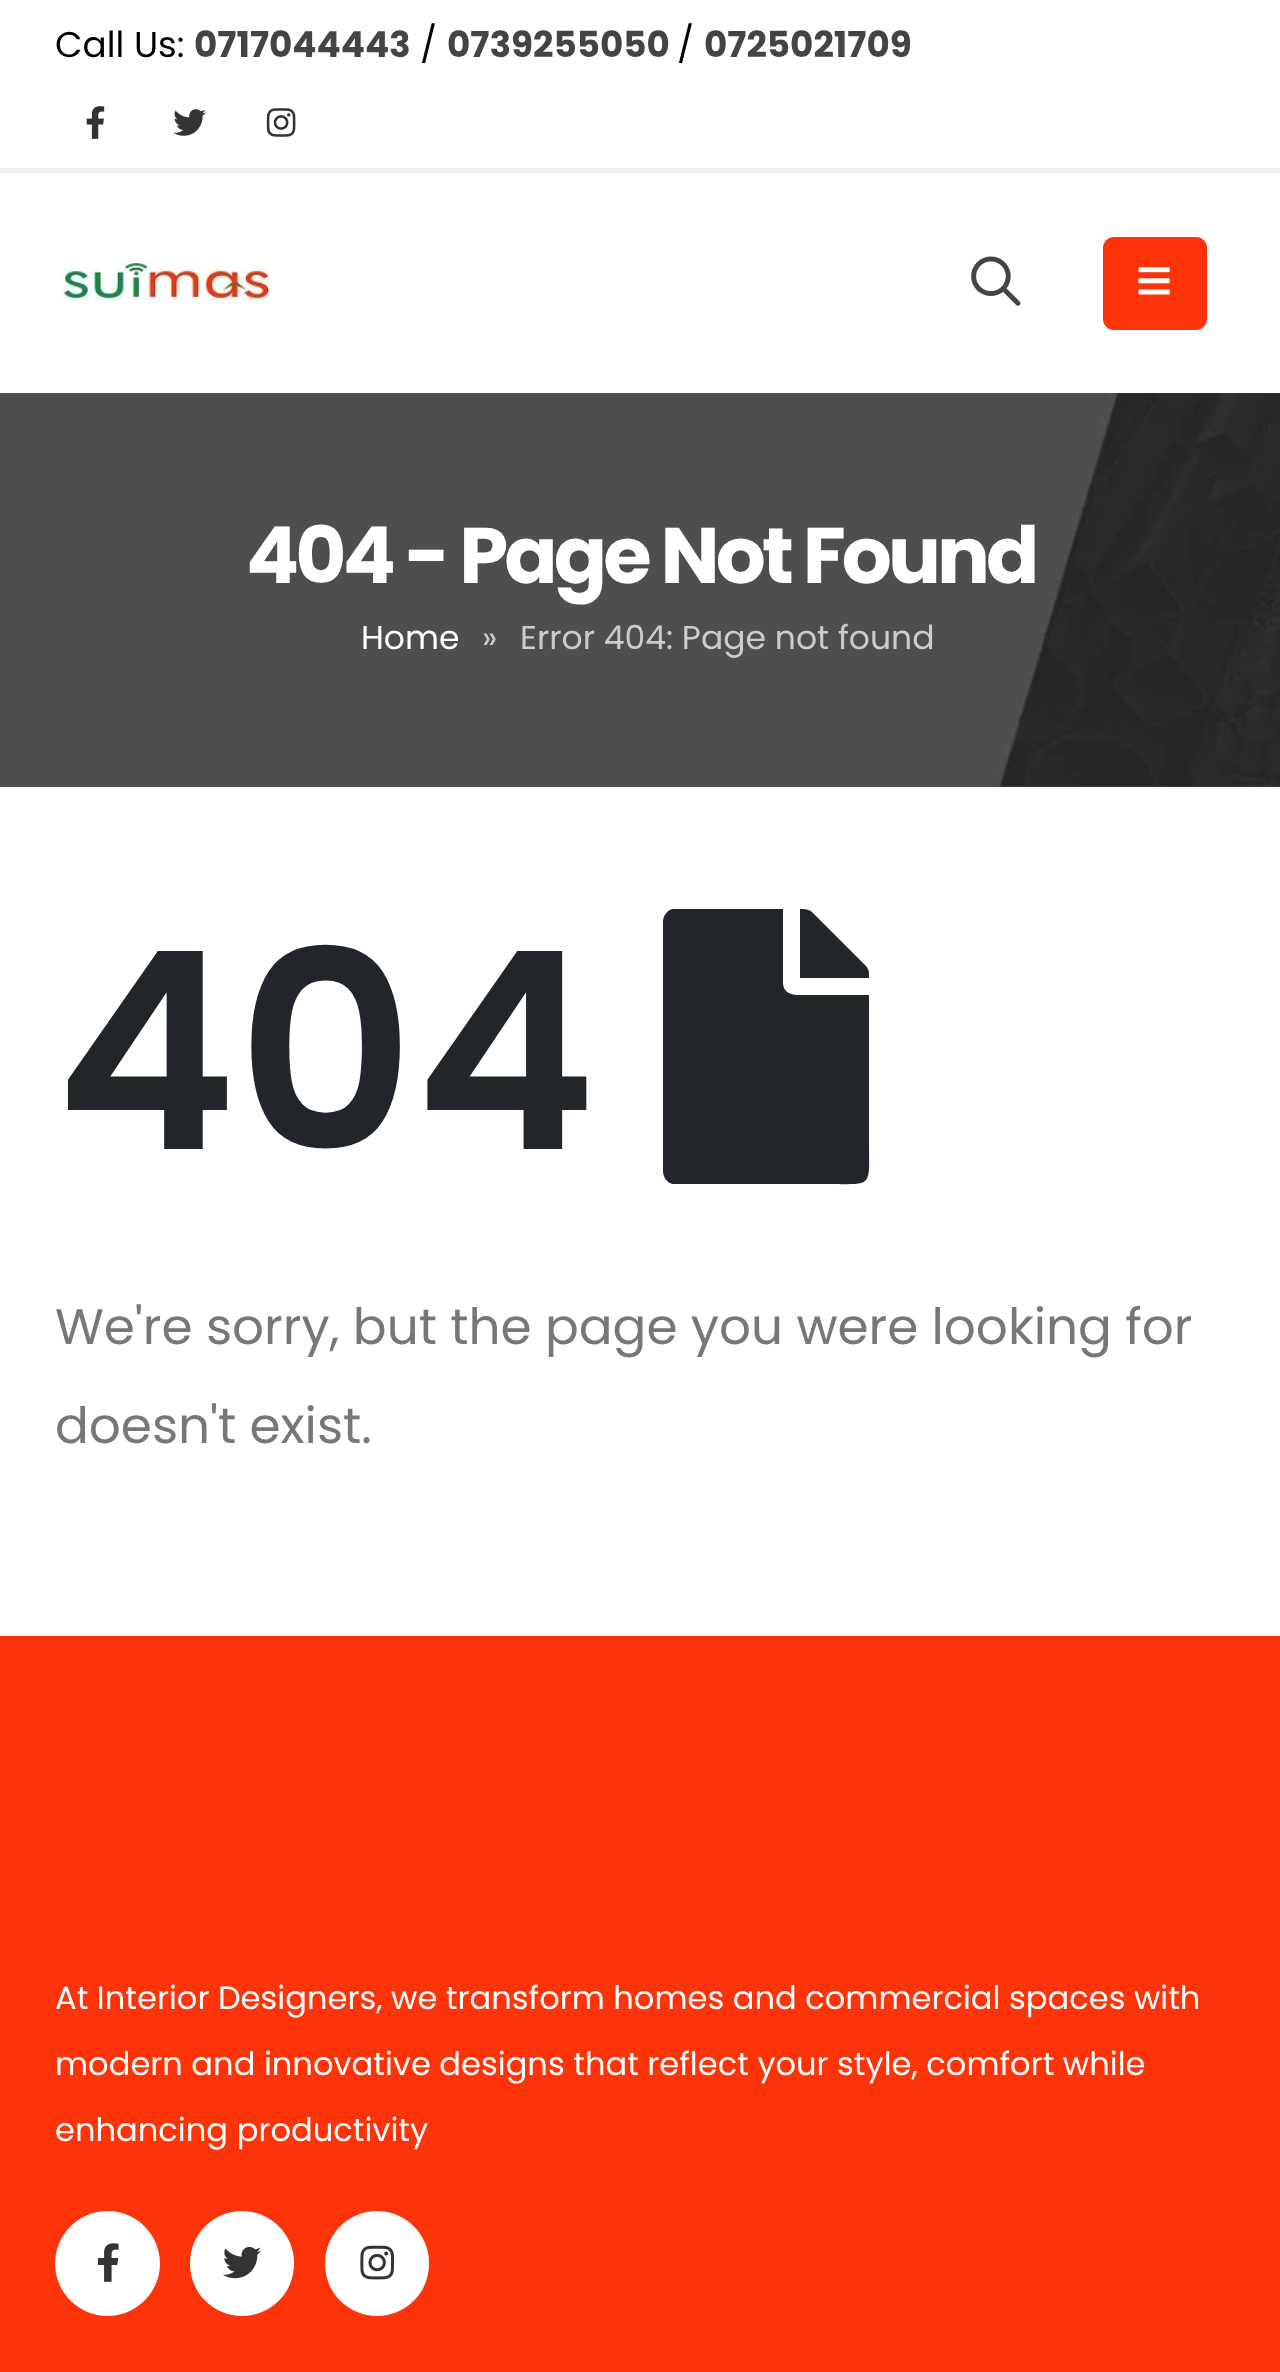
async function draw(canvas) {
	canvas.width = 1280;
	canvas.height = 2372;
	const c = canvas.getContext('2d');
	c.miterLimit = 4;
	c.fontKerning = 'normal';
	async function loadImage(src) {
		const img = new Image();
		img.src = src;
		await img.decode();
		return img;
	}

	c.fillStyle = '#fff';
	c.fillRect(0, 0, 1280, 2372);
	c.fillStyle = '#f0f0f0';
	c.fillRect(0, 168, 1280, 5);
	c.font = '35.75px Poppins';
	c.fillStyle = '#000';
	c.fillText('Call Us:', 55, 57);
	c.font = 'bold 35.75px Poppins';
	c.fillStyle = '#444';
	c.fillText('0717044443', 194, 57);
	c.font = '35.75px Poppins';
	c.fillStyle = '#000';
	c.fillText('/', 420, 57);
	c.font = 'bold 35.75px Poppins';
	c.fillStyle = '#444';
	c.fillText('0739255050', 447, 57);
	c.font = '35.75px Poppins';
	c.fillStyle = '#000';
	c.fillText('/', 677, 57);
	c.font = 'bold 35.75px Poppins';
	c.fillStyle = '#444';
	c.fillText('0725021709', 704, 57);
	c.drawImage(await loadImage('img1.png'), 86, 106, 19, 33);
	c.drawImage(await loadImage('img2.png'), 173, 109, 33, 27);
	c.drawImage(await loadImage('img3.png'), 266, 108, 30, 29);
	c.drawImage(await loadImage('img4.png'), 61, 258, 212, 48);
	c.drawImage(await loadImage('img5.png'), 971, 256, 50, 50);
	c.fillStyle = '#fd330a';
	c.beginPath();
	c.roundRect(1103, 237, 104, 93, 11);
	c.fill();
	c.drawImage(await loadImage('img6.png'), 1138, 267, 32, 28);
	c.fillStyle = '#4d4e50';
	c.fillRect(0, 393, 1280, 394);
	c.drawImage(await loadImage('img7.png'), 999, 393, 281, 394);
	c.letterSpacing = '-3.9px';
	c.font = 'bold 78.6px Poppins';
	c.fillStyle = '#fff';
	c.fillText('404 - Page Not Found', 246, 583);
	c.letterSpacing = '0px';
	c.font = '33px Poppins';
	c.fillText('Home', 361, 649);
	c.fillStyle = '#ccc';
	c.fillText('»', 482, 649);
	c.fillText('Error 404: Page not found', 520, 649);
	c.font = '600 275px Poppins';
	c.fillStyle = '#222529';
	c.fillText('404', 55, 1149);
	c.beginPath();
	c.moveTo(783, 982);
	c.bezierCurveTo(783, 997, 798, 995, 808, 995);
	c.lineTo(869, 995);
	c.lineTo(869, 1142);
	c.bezierCurveTo(869, 1189, 874, 1184, 826, 1184);
	c.lineTo(673, 1184);
	c.bezierCurveTo(667, 1183, 663, 1177, 663, 1171);
	c.lineTo(663, 922);
	c.bezierCurveTo(663, 916, 667, 910, 673, 909);
	c.lineTo(783, 909);
	c.closePath();
	c.moveTo(869, 974);
	c.lineTo(869, 978);
	c.lineTo(800, 978);
	c.lineTo(800, 909);
	c.lineTo(803, 909);
	c.bezierCurveTo(807, 909, 810, 910, 813, 913);
	c.lineTo(865, 965);
	c.bezierCurveTo(868, 968, 869, 971, 869, 974);
	c.closePath();
	c.fill();
	c.font = '50.05px Poppins';
	c.fillStyle = '#777';
	c.fillText('We\'re sorry, but the page you were looking for', 55, 1344);
	c.fillText('doesn\'t exist.', 55, 1443);
	c.fillStyle = '#fd330a';
	c.fillRect(0, 1636, 1280, 736);
	c.wordSpacing = '-0.1px';
	c.font = '32.15px Poppins';
	c.fillStyle = '#fff';
	c.fillText('At Interior Designers, we transform homes and commercial spaces with', 55, 2009);
	c.fillText('modern and innovative designs that reflect your style, comfort while', 55, 2075);
	c.wordSpacing = '0px';
	c.fillText('enhancing productivity', 55, 2141);
	c.beginPath();
	c.arc(107.5, 2263.5, 52.5, 0, 2 * Math.PI);
	c.fill();
	c.drawImage(await loadImage('img8.png'), 98, 2243, 21, 39);
	c.beginPath();
	c.roundRect(190, 2211, 104, 105, 52);
	c.fill();
	c.drawImage(await loadImage('img9.png'), 223, 2246, 39, 33);
	c.beginPath();
	c.roundRect(325, 2211, 104, 105, 52);
	c.fill();
	c.drawImage(await loadImage('img10.png'), 360, 2245, 34, 35);
}

draw(document.querySelector('canvas'));
